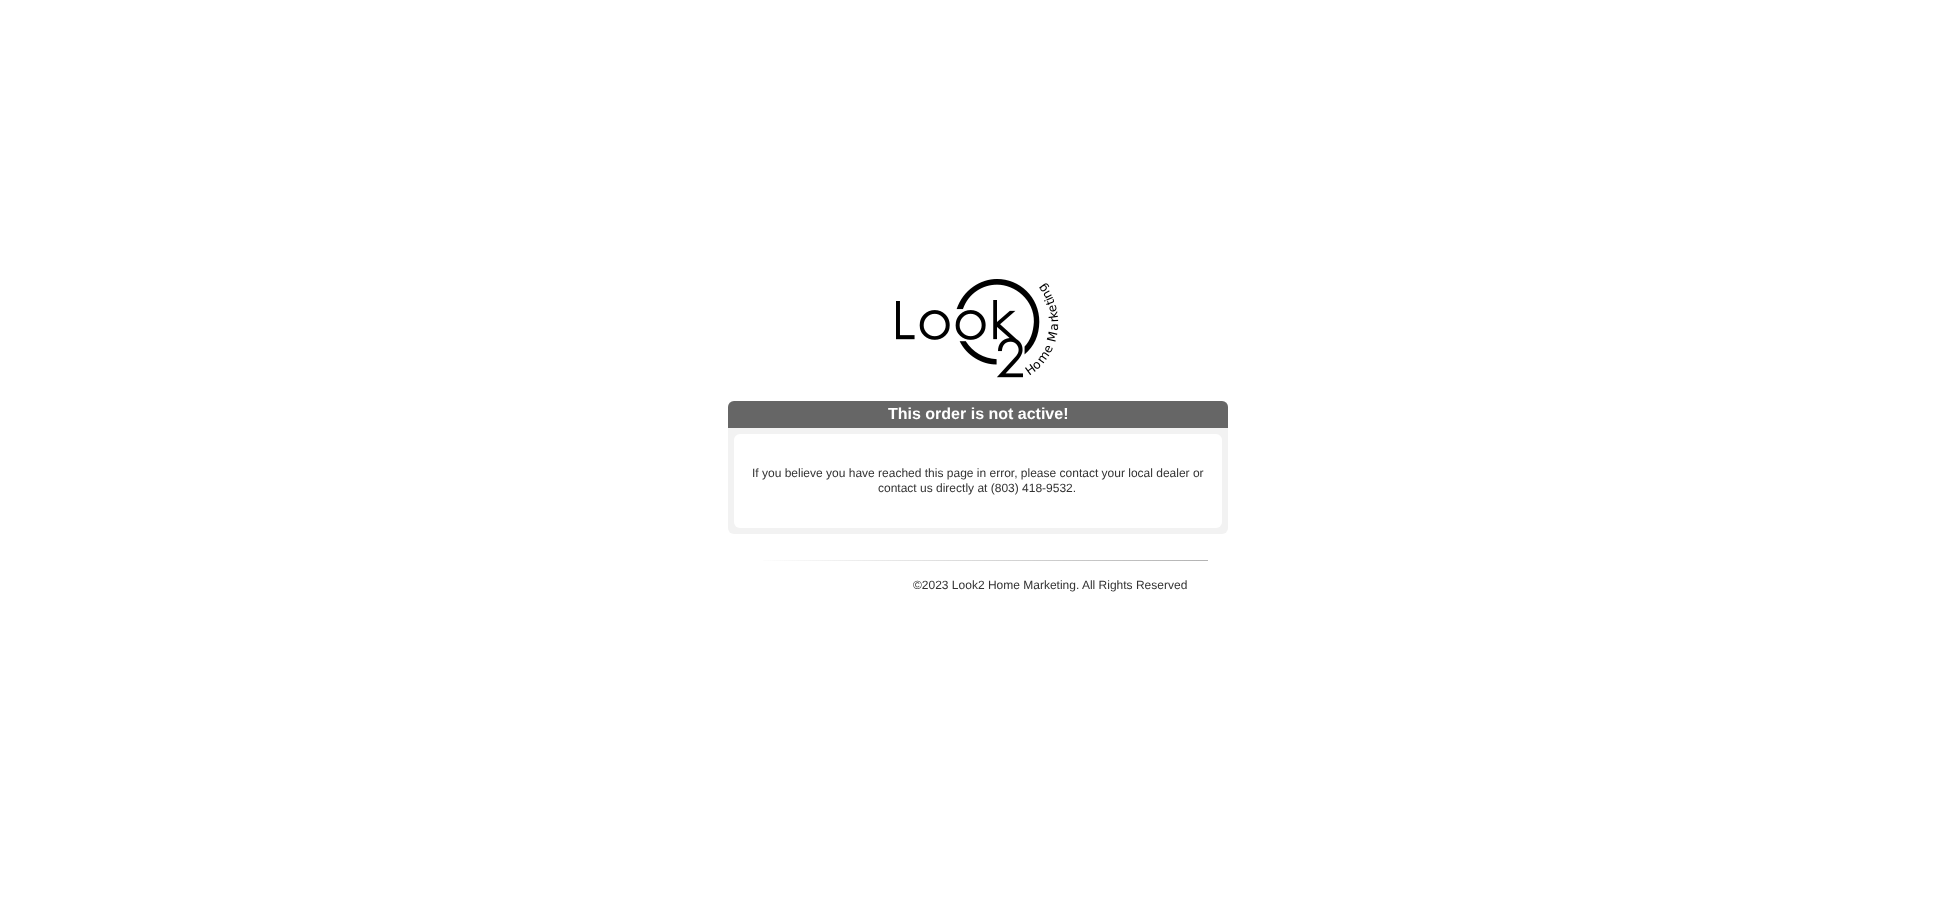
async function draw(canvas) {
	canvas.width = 1955;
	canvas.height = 901;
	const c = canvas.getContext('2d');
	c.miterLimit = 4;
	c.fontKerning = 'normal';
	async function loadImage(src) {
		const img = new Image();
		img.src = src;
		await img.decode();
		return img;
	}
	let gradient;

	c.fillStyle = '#fff';
	c.fillRect(0, 0, 1955, 901);
	c.drawImage(await loadImage('img1.png'), 896, 279, 163, 99);
	c.fillStyle = '#f2f2f2';
	c.beginPath();
	c.roundRect(728, 401, 500, 133, 6);
	c.fill();
	c.fillStyle = '#666';
	c.beginPath();
	c.roundRect(728, 401, 500, 27, [6, 6, 0, 0]);
	c.fill();
	c.font = 'bold 16px Liberation Sans';
	c.fillStyle = '#fff';
	c.fillText('This order is not active!', 888, 419);
	c.beginPath();
	c.roundRect(734, 434, 488, 94, 6);
	c.fill();
	c.font = '12px Liberation Sans';
	c.fillStyle = '#333';
	c.fillText('If you believe you have reached this page in error, please contact your local dealer or', 752, 477);
	c.fillText('contact us directly at (803) 418-9532.', 878, 492);
	gradient = c.createLinearGradient(748, 560, 1208, 560);
	gradient.addColorStop(0, '#fff');
	gradient.addColorStop(1, '#b3b3b3');
	c.fillStyle = gradient;
	c.fillRect(763, 560, 445, 1);
	c.fillStyle = '#333';
	c.fillText('©2023 Look2 Home Marketing. All Rights Reserved', 913, 589);
}

draw(document.querySelector('canvas'));
